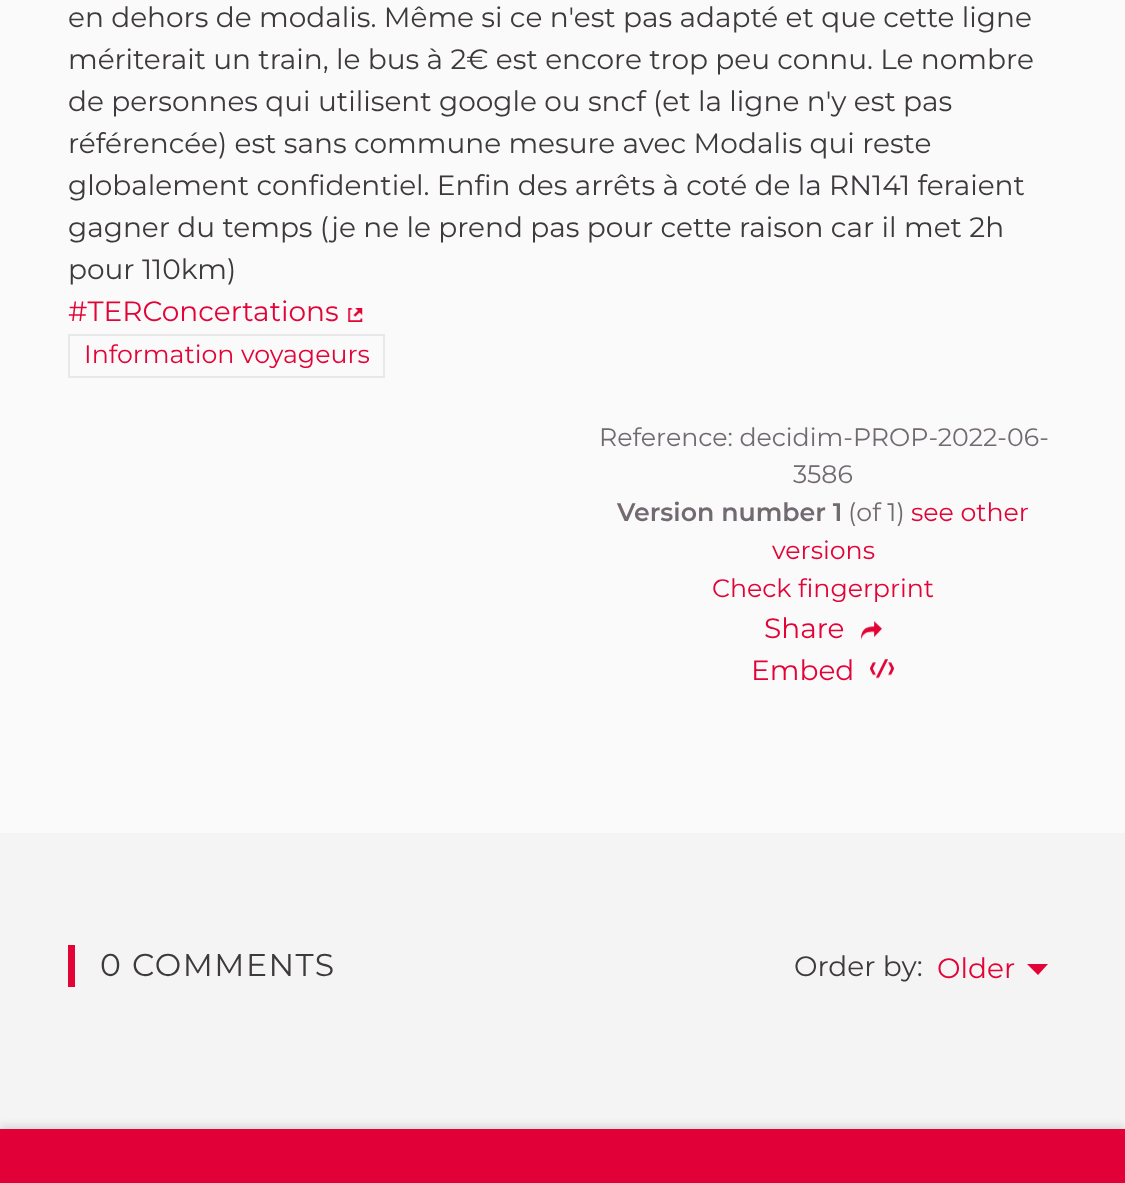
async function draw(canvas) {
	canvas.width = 1125;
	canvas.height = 1183;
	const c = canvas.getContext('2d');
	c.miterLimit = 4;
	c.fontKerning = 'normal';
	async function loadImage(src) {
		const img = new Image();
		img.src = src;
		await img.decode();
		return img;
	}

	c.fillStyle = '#fafafa';
	c.fillRect(0, 0, 1125, 1183);
	c.font = '28px Montserrat';
	c.fillStyle = '#3d393c';
	for (const [text, x, y] of [
		['en dehors de modalis. Même si ce n\'est pas adapté et que cette ligne', 68, 27],
		['mériterait un train, le bus à 2€ est encore trop peu connu. Le nombre', 68, 69],
		['de personnes qui utilisent google ou sncf (et la ligne n\'y est pas', 68, 111],
		['référencée) est sans commune mesure avec Modalis qui reste', 68, 153],
		['globalement confidentiel. Enfin des arrêts à coté de la RN141 feraient', 68, 195],
		['gagner du temps (je ne le prend pas pour cette raison car il met 2h', 68, 237],
		['pour 110km)', 68, 279],
	]) {
		c.fillText(text, x, y);
	}
	c.fillStyle = '#e20337';
	c.fillText('#TERConcertations', 68, 321);
	c.drawImage(await loadImage('img1.png'), 348, 308, 15, 14);
	c.strokeStyle = '#e8e8e8';
	c.lineWidth = 2;
	c.strokeRect(69, 335, 315, 42);
	c.font = '25.25px Montserrat';
	c.fillText('Information voyageurs', 84, 363);
	c.fillStyle = '#726a70';
	c.fillText('Reference: decidim-PROP-2022-06-', 599, 446);
	c.fillText('3586', 793, 483);
	c.font = '600 25.25px Montserrat';
	c.fillText('Version number 1', 617, 521);
	c.font = '25.25px Montserrat';
	c.fillText('(of 1)', 848, 521);
	c.fillStyle = '#e20337';
	for (const [text, x, y] of [
		['see other', 911, 521],
		['versions', 772, 559],
		['Check fingerprint', 712, 597],
	]) {
		c.fillText(text, x, y);
	}
	c.font = '28px Montserrat';
	c.fillText('Share', 764, 638);
	c.drawImage(await loadImage('img2.png'), 861, 621, 21, 19);
	c.fillText('Embed', 751, 680);
	c.drawImage(await loadImage('img3.png'), 870, 659, 24, 20);
	c.fillStyle = '#f4f4f4';
	c.fillRect(0, 833, 1125, 296);
	c.fillStyle = '#e20337';
	c.fillRect(68, 945, 7, 42);
	c.letterSpacing = '1.5px';
	c.font = '31.5px Montserrat';
	c.fillStyle = '#3d393c';
	c.fillText('0 COMMENTS', 100, 976);
	c.letterSpacing = '0px';
	c.font = '28px Montserrat';
	c.fillText('Order by:', 794, 976);
	c.fillStyle = '#e20337';
	c.fillText('Older', 937, 978);
	c.beginPath();
	c.moveTo(1027, 964);
	c.lineTo(1048, 964);
	c.lineTo(1038, 975);
	c.closePath();
	c.fill();
	c.fillStyle = '#0000001a';
	c.filter = 'blur(3.5px)';
	c.beginPath();
	c.rect(0, 1125, 1125, 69);
	c.fill();
	c.filter = 'none';
	c.fillStyle = '#e20039';
	c.fillRect(0, 1129, 1125, 54);
}

draw(document.querySelector('canvas'));
